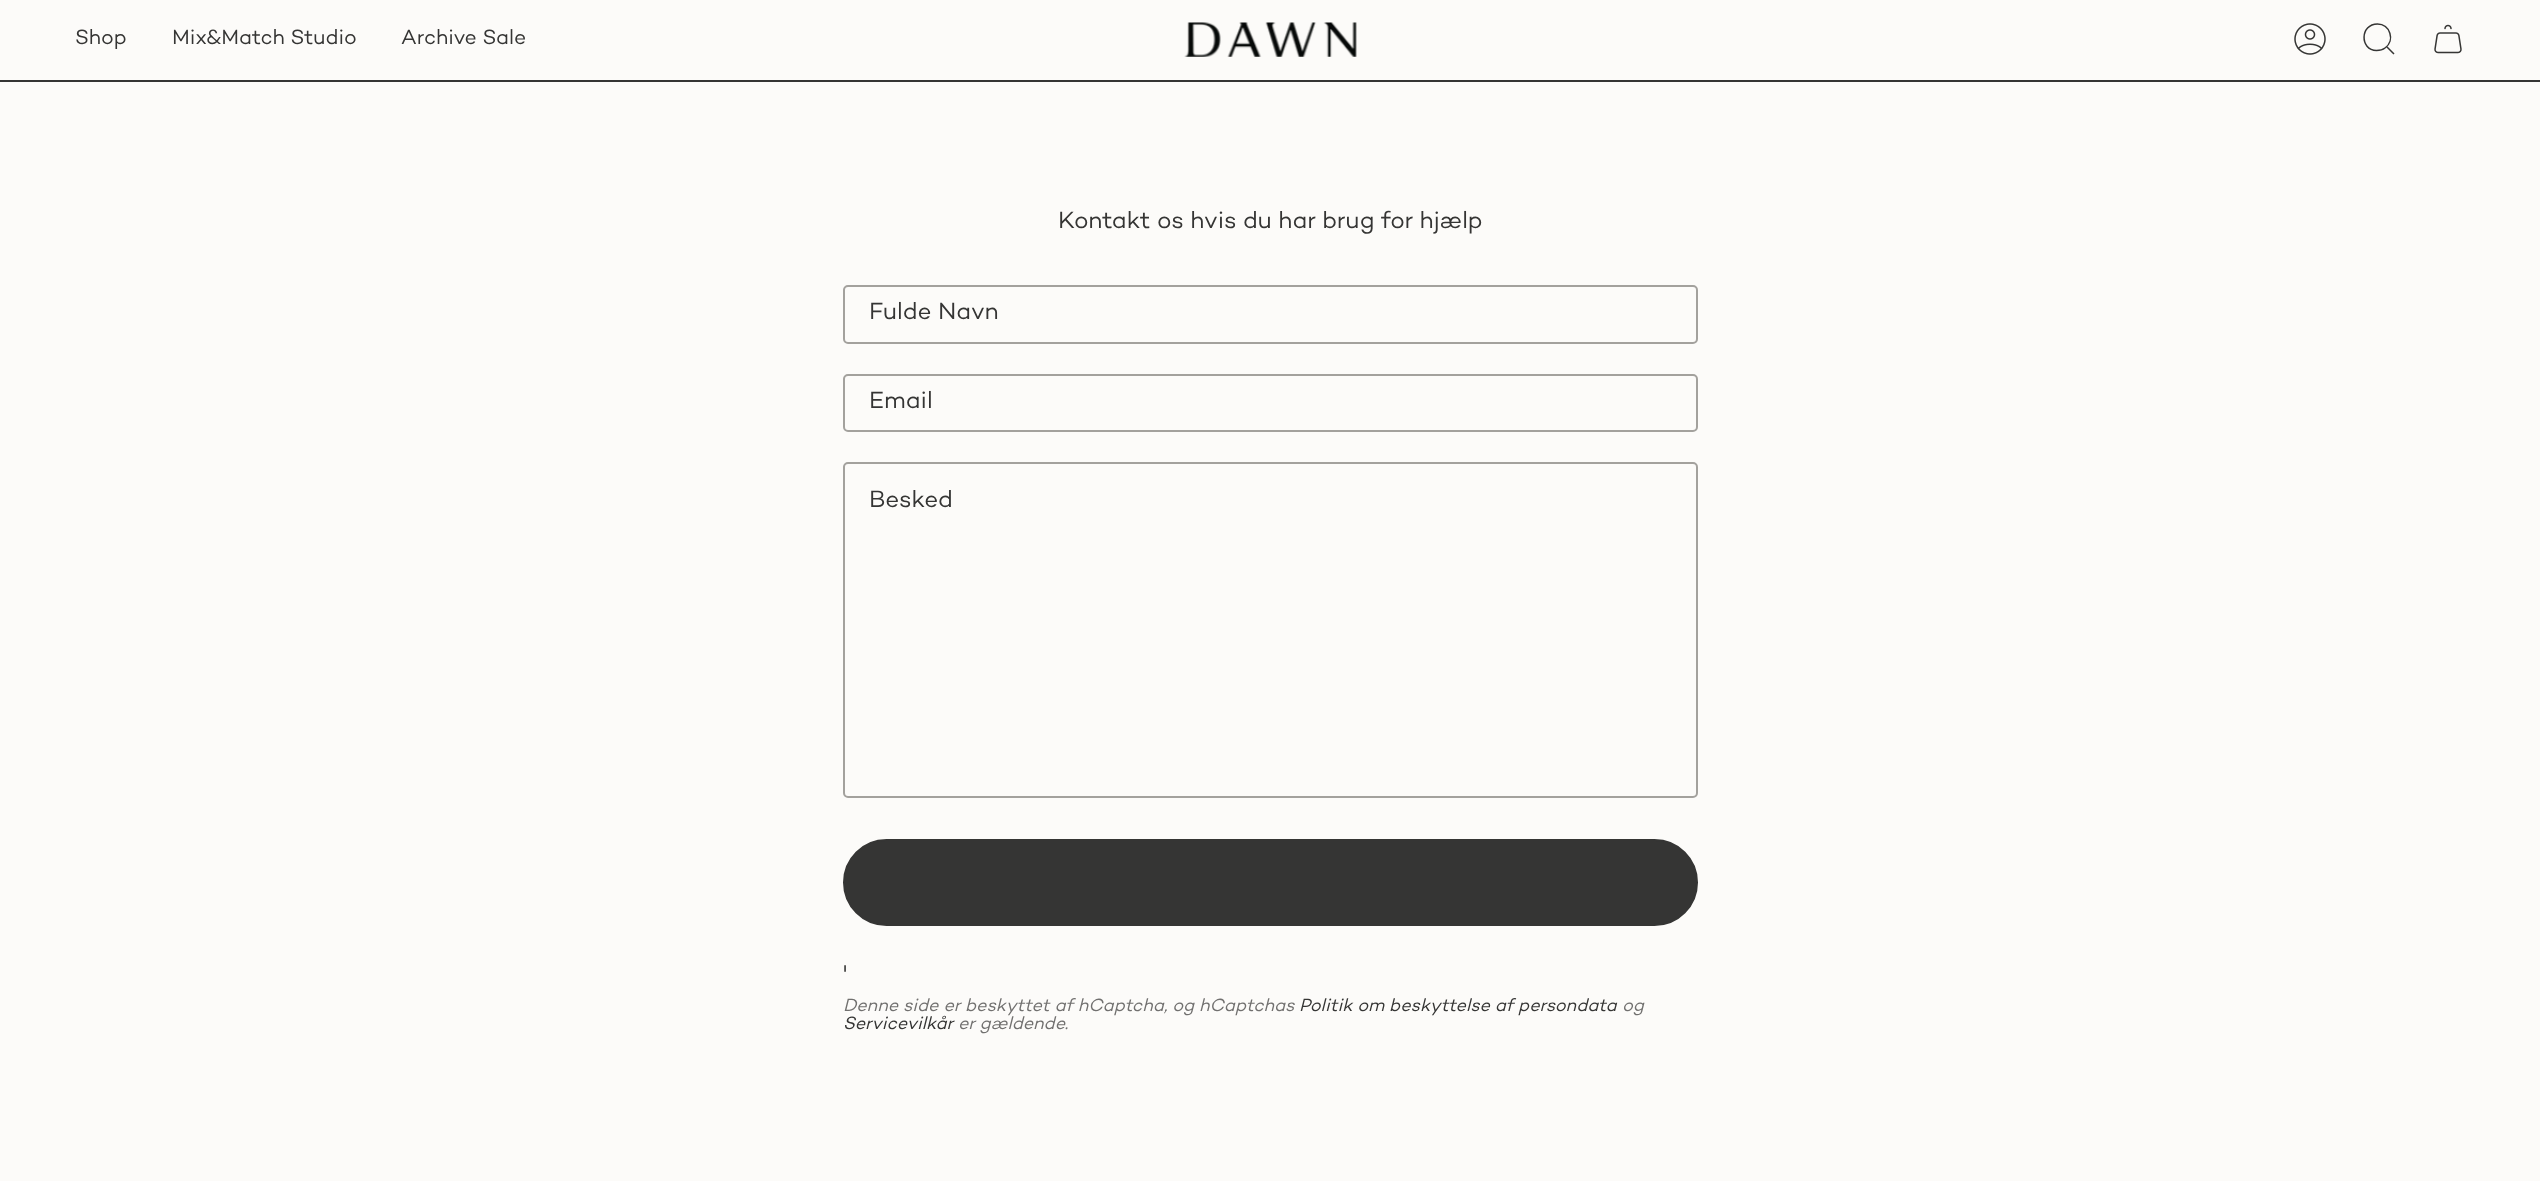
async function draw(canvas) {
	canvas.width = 2540;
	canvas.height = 1181;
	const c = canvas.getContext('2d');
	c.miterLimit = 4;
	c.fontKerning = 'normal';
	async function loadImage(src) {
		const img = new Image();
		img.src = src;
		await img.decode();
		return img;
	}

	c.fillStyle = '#fcfbf9';
	c.fillRect(0, 0, 2540, 1181);
	c.fillStyle = '#353534';
	c.fillRect(0, 80, 2540, 2);
	c.font = '21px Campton';
	for (const [text, x, y] of [
		['Shop', 75, 44],
		['Mix&Match Studio', 172, 44],
		['Archive Sale', 401, 44],
	]) {
		c.fillText(text, x, y);
	}
	c.drawImage(await loadImage('img1.png'), 1184, 22, 173, 35);
	c.drawImage(await loadImage('img2.png'), 2294, 23, 32, 32);
	c.beginPath();
	c.moveTo(2377.5, 24);
	c.bezierCurveTo(2390, 24, 2395.5, 40.5, 2385, 48);
	c.bezierCurveTo(2382.5, 50, 2379.5, 50.5, 2376.5, 50.5);
	c.bezierCurveTo(2359.5, 50, 2360, 24, 2377.5, 24);
	c.closePath();
	c.moveTo(2386.5, 46.5);
	c.lineTo(2394, 54);
	c.strokeStyle = '#353534';
	c.lineWidth = 1.5;
	c.stroke();
	c.drawImage(await loadImage('img3.png'), 2434, 24, 28, 30);
	c.font = '24px Campton';
	c.fillText('Kontakt os hvis du har brug for hjælp', 1058, 228);
	c.beginPath();
	c.roundRect(844, 286, 853, 57, 4);
	c.strokeStyle = '#a3a19d';
	c.lineWidth = 2;
	c.stroke();
	c.fillText('Fulde Navn', 869, 319);
	c.beginPath();
	c.roundRect(844, 375, 853, 56, 4);
	c.stroke();
	c.fillText('Email', 869, 408);
	c.beginPath();
	c.roundRect(844, 463, 853, 334, 4);
	c.stroke();
	c.fillText('Besked', 869, 507);
	c.beginPath();
	c.roundRect(844, 840, 853, 85, 42.5);
	c.fill();
	c.strokeStyle = '#353534';
	c.stroke();
	c.fillText('\'', 843, 982);
	c.font = 'italic 18px Campton';
	c.fillStyle = '#71706f';
	c.fillText('Denne side er beskyttet af hCaptcha, og hCaptchas', 843, 1011);
	c.fillStyle = '#353534';
	c.fillText('Politik om beskyttelse af persondata', 1299, 1011);
	c.fillStyle = '#71706f';
	c.fillText('og', 1622, 1011);
	c.fillStyle = '#353534';
	c.fillText('Servicevilkår', 843, 1029);
	c.fillStyle = '#71706f';
	c.fillText('er gældende.', 958, 1029);
}

draw(document.querySelector('canvas'));
